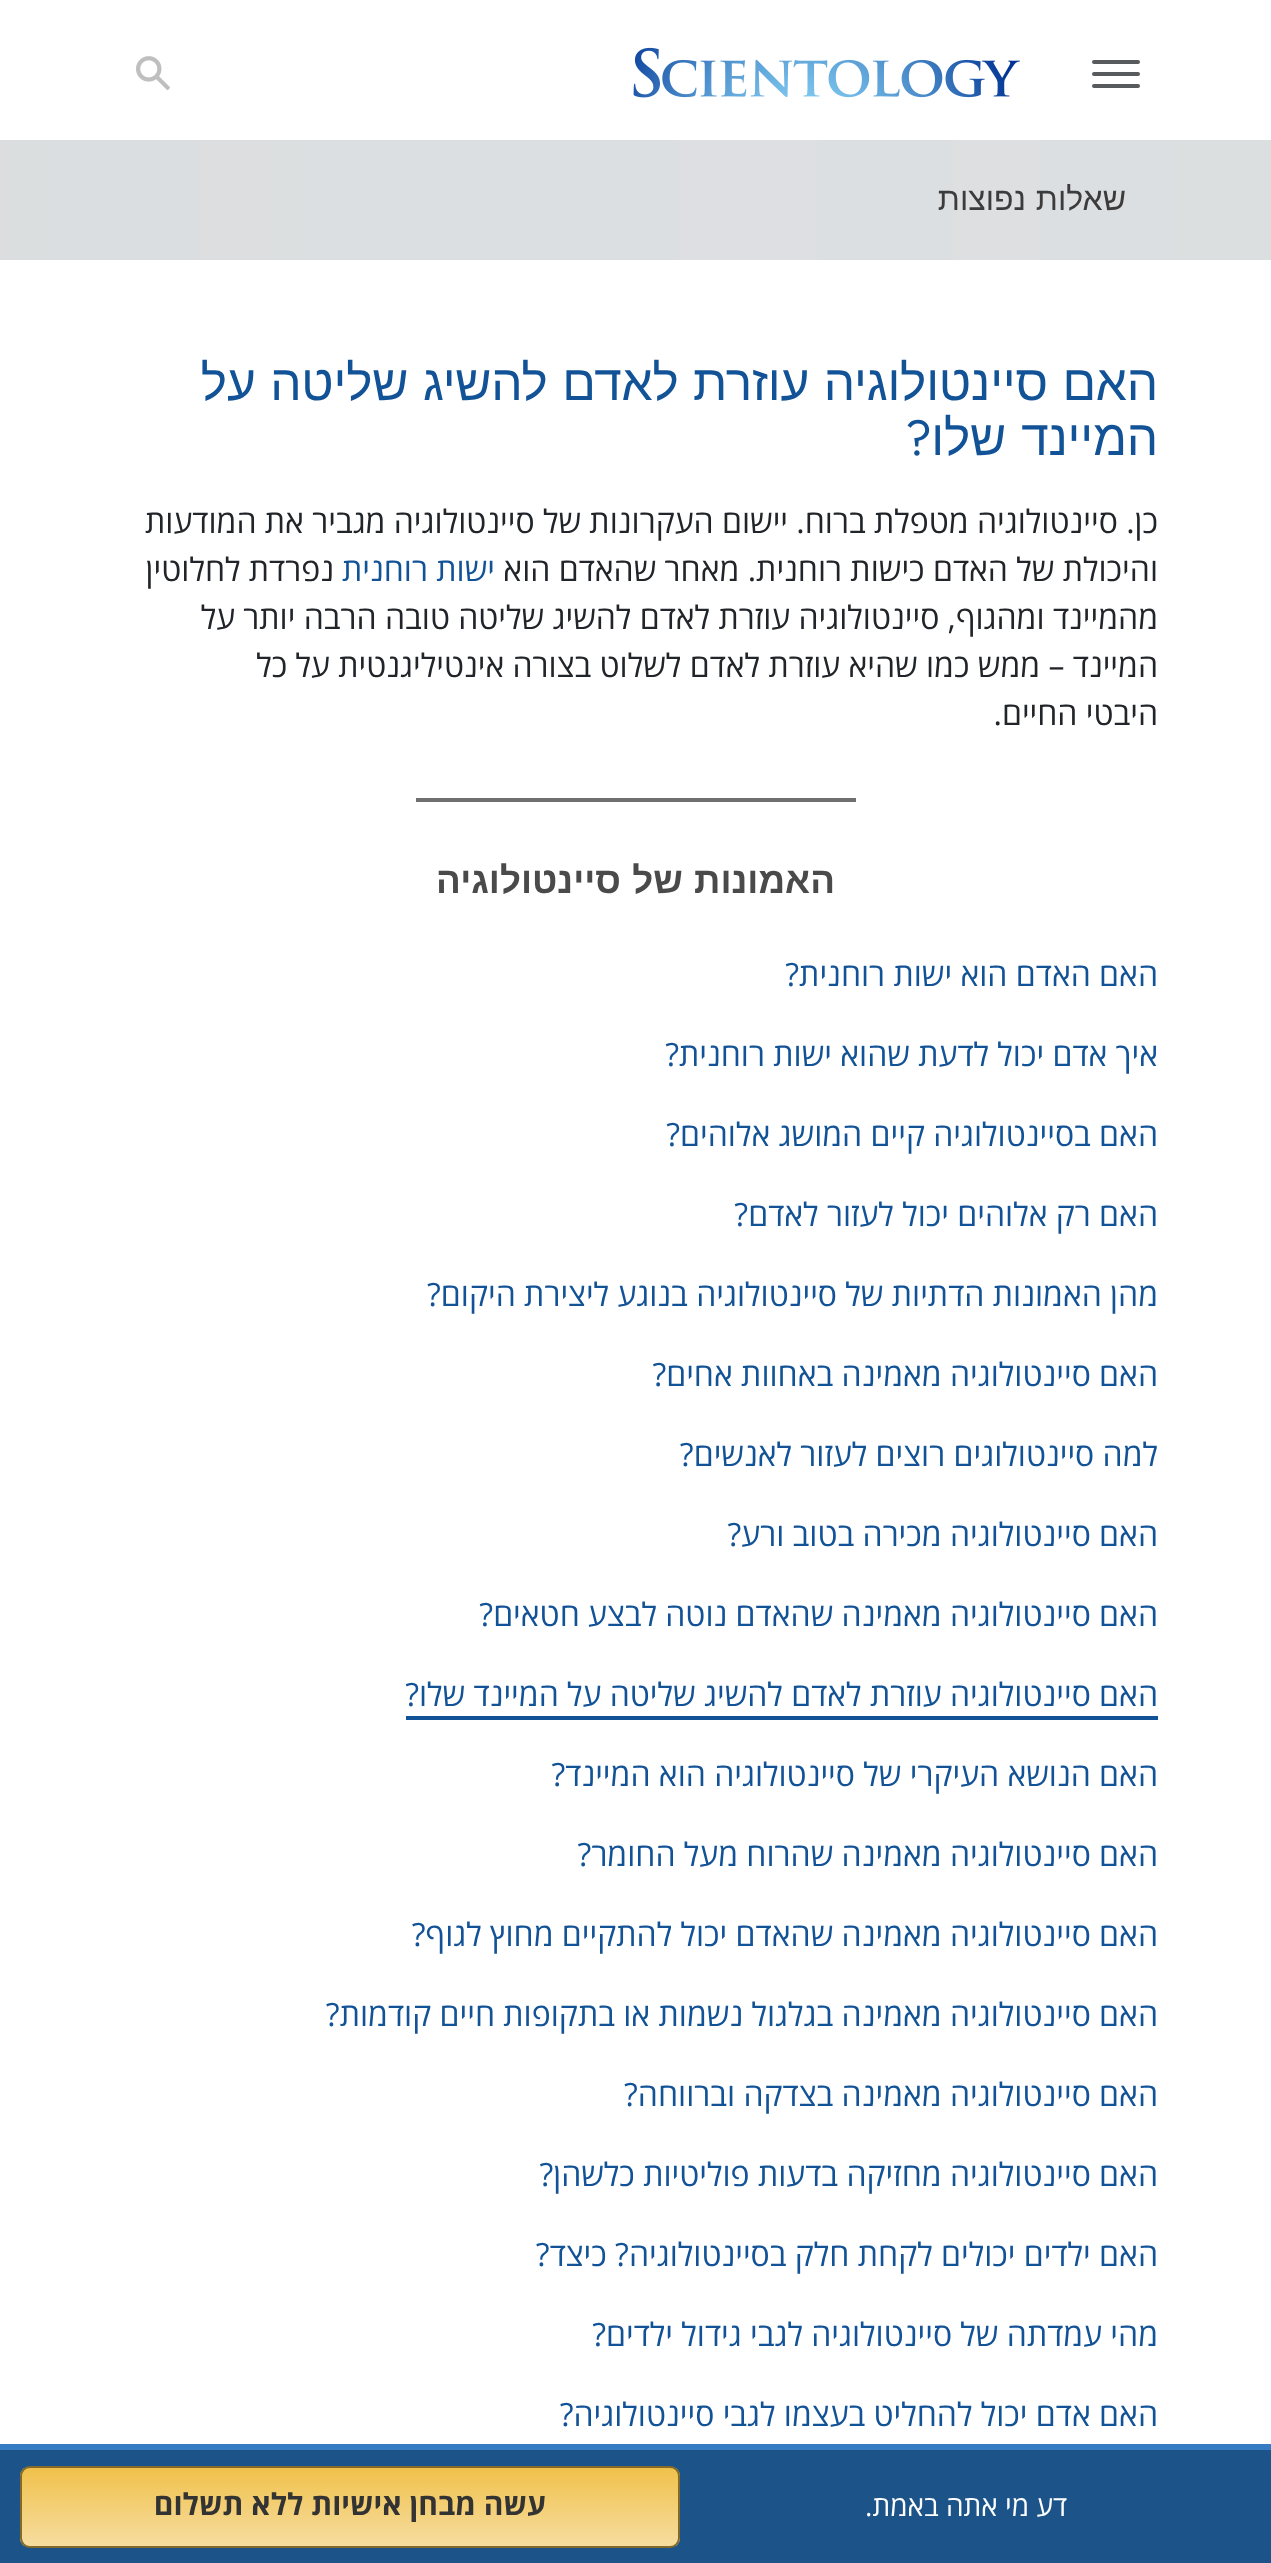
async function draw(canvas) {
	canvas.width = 1271;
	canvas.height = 2563;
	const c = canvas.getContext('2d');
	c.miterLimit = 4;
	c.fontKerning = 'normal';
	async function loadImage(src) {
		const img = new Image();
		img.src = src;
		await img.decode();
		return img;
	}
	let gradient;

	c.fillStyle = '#fff';
	c.fillRect(0, 0, 1271, 2563);
	c.fillStyle = '#575b5e';
	c.beginPath();
	c.roundRect(1092, 60, 48, 4, 2);
	c.fill();
	c.beginPath();
	c.roundRect(1092, 72, 48, 4, 2);
	c.fill();
	c.beginPath();
	c.roundRect(1092, 84, 48, 4, 2);
	c.fill();
	c.drawImage(await loadImage('img1.png'), 633, 47, 387, 51);
	c.drawImage(await loadImage('img2.png'), 136, 56, 34, 35);
	c.drawImage(await loadImage('img3.png'), 0, 140, 1271, 120);
	c.wordSpacing = '1px';
	c.direction = 'rtl';
	c.font = '32px Liberation Sans';
	c.fillStyle = '#3c3c3c';
	c.fillText('שאלות נפוצות', 1126, 210);
	c.letterSpacing = '-0.2px';
	c.font = '49.6px Liberation Sans';
	c.fillStyle = '#125296';
	c.fillText('האם סיינטולוגיה עוזרת לאדם להשיג שליטה על', 1158, 400);
	c.wordSpacing = '0px';
	c.fillText('המיינד', 1158, 455);
	c.fillText('שלו', 1006, 455);
	c.font = '49.6px Jost';
	c.fillText('?', 932, 455);
	c.letterSpacing = '0px';
	c.font = '32px Open Sans';
	c.fillStyle = '#212529';
	c.fillText('כן. סיינטולוגיה מטפלת ברוח. יישום העקרונות של סיינטולוגיה מגביר את המודעות', 1158, 533);
	c.fillText('והיכולת של האדם כישות רוחנית. מאחר שהאדם הוא', 1158, 581);
	c.fillStyle = '#125296';
	c.fillText('ישות רוחנית', 495, 581);
	c.fillStyle = '#212529';
	for (const [text, x, y] of [
		['נפרדת לחלוטין', 334, 581],
		['מהמיינד ומהגוף, סיינטולוגיה עוזרת לאדם להשיג שליטה טובה הרבה יותר על', 1158, 629],
		['המיינד – ממש כמו שהיא עוזרת לאדם לשלוט בצורה אינטיליגנטית על כל', 1158, 677],
		['היבטי החיים.', 1158, 725],
	]) {
		c.fillText(text, x, y);
	}
	c.fillStyle = '#707070';
	c.fillRect(416, 798, 440, 4);
	c.wordSpacing = '1px';
	c.font = 'bold 36.75px Liberation Sans';
	c.fillStyle = '#4a4a4a';
	c.fillText('האמונות של סיינטולוגיה', 835, 893);
	c.wordSpacing = '0px';
	c.font = '32px Open Sans';
	c.fillStyle = '#125296';
	for (const [text, x, y] of [
		['האם האדם הוא ישות רוחנית?', 1158, 986],
		['איך אדם יכול לדעת שהוא ישות רוחנית?', 1158, 1066],
		['האם בסיינטולוגיה קיים המושג אלוהים?', 1158, 1146],
		['האם רק אלוהים יכול לעזור לאדם?', 1158, 1226],
		['מהן האמונות הדתיות של סיינטולוגיה בנוגע ליצירת היקום?', 1158, 1306],
		['האם סיינטולוגיה מאמינה באחוות אחים?', 1158, 1386],
		['למה סיינטולוגים רוצים לעזור לאנשים?', 1158, 1466],
		['האם סיינטולוגיה מכירה בטוב ורע?', 1158, 1546],
		['האם סיינטולוגיה מאמינה שהאדם נוטה לבצע חטאים?', 1158, 1626],
		['האם סיינטולוגיה עוזרת לאדם להשיג שליטה על המיינד שלו?', 1158, 1706],
	]) {
		c.fillText(text, x, y);
	}
	c.fillRect(406, 1716, 752, 4);
	for (const [text, x, y] of [
		['האם הנושא העיקרי של סיינטולוגיה הוא המיינד?', 1158, 1786],
		['האם סיינטולוגיה מאמינה שהרוח מעל החומר?', 1158, 1866],
		['האם סיינטולוגיה מאמינה שהאדם יכול להתקיים מחוץ לגוף?', 1158, 1946],
		['האם סיינטולוגיה מאמינה בגלגול נשמות או בתקופות חיים קודמות?', 1158, 2026],
		['האם סיינטולוגיה מאמינה בצדקה וברווחה?', 1158, 2106],
		['האם סיינטולוגיה מחזיקה בדעות פוליטיות כלשהן?', 1158, 2186],
		['האם ילדים יכולים לקחת חלק בסיינטולוגיה? כיצד?', 1158, 2266],
		['מהי עמדתה של סיינטולוגיה לגבי גידול ילדים?', 1158, 2346],
		['האם אדם יכול להחליט בעצמו לגבי סיינטולוגיה?', 1158, 2426],
	]) {
		c.fillText(text, x, y);
	}
	c.fillStyle = '#1c548a';
	c.fillRect(0, 2450, 1271, 113);
	c.fillStyle = '#357cc4';
	c.beginPath();
	c.moveTo(-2, 2444);
	c.lineTo(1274, 2444);
	c.lineTo(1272, 2450);
	c.lineTo(0, 2450);
	c.closePath();
	c.fill();
	c.font = '28px Open Sans';
	c.fillStyle = '#fff';
	c.fillText('דע מי אתה באמת.', 1067, 2516);
	c.save();
	c.beginPath();
	c.roundRect(20, 2466, 660, 82, 10);
	c.clip();
	gradient = c.createLinearGradient(350, 2468, 350, 2546);
	gradient.addColorStop(0, '#f0c14b');
	gradient.addColorStop(1, '#f6dda0');
	c.fillStyle = gradient;
	c.fillRect(20, 2468, 660, 78);
	c.restore();
	c.beginPath();
	c.roundRect(21, 2467, 658, 80, 9);
	c.strokeStyle = '#846a28';
	c.lineWidth = 2;
	c.stroke();
	c.font = 'bold 30px Open Sans';
	c.fillStyle = '#333';
	c.fillText('עשה מבחן אישיות ללא תשלום', 546, 2515);
}

draw(document.querySelector('canvas'));
